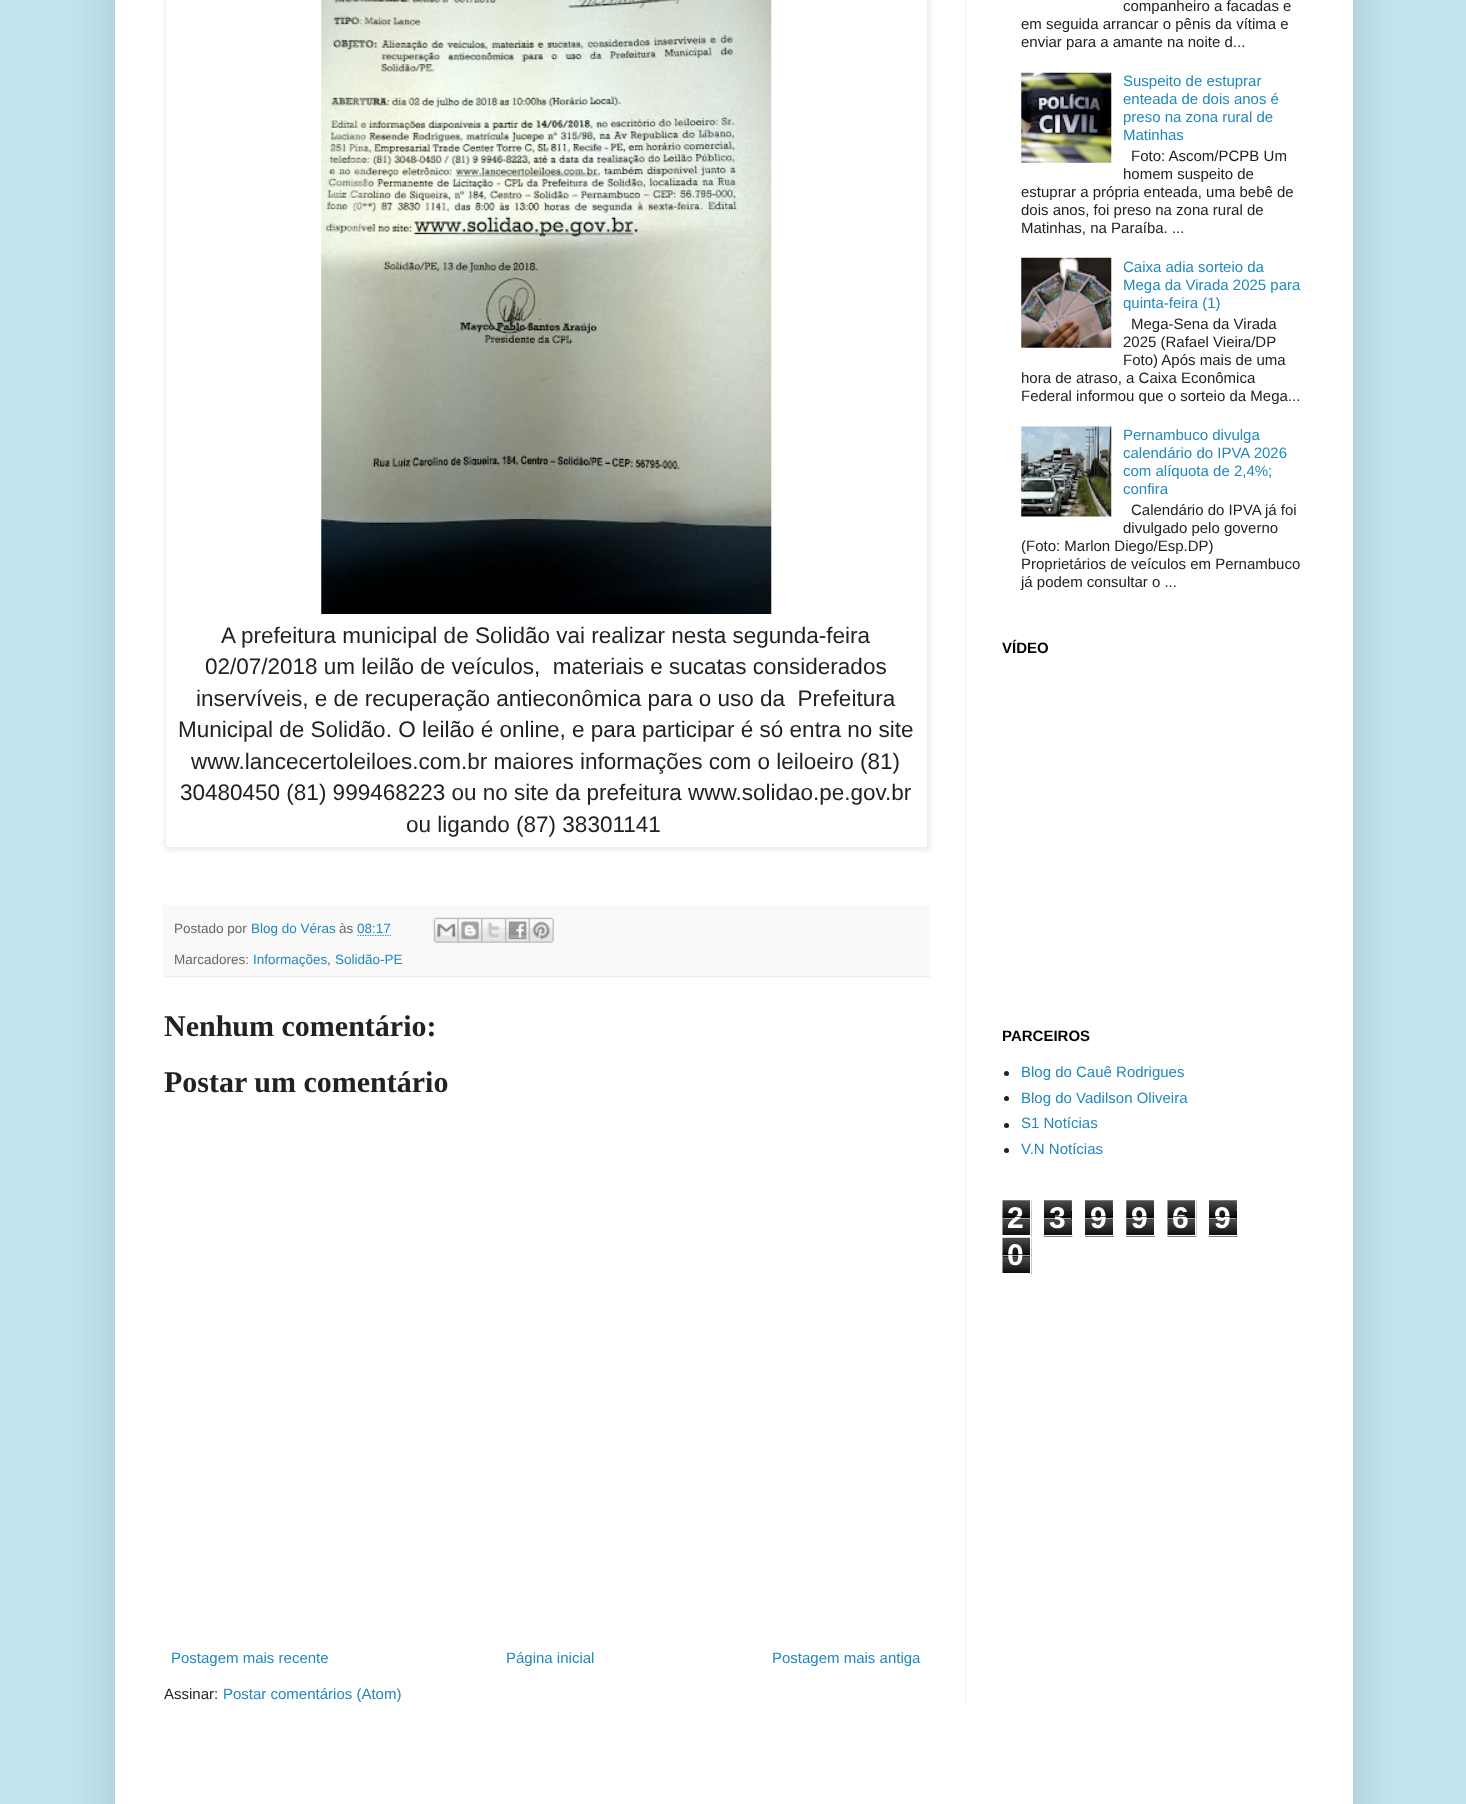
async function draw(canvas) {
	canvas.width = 1466;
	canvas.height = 1804;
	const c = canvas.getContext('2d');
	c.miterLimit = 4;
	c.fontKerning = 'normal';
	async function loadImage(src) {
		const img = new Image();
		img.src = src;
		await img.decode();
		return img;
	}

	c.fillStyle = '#c1e5f1';
	c.fillRect(0, 0, 1466, 1804);
	c.fillStyle = '#00000026';
	c.filter = 'blur(25px)';
	c.beginPath();
	c.rect(115, -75, 1238, 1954);
	c.fill();
	c.filter = 'none';
	c.fillStyle = '#fff';
	c.fillRect(115, 0, 1238, 1804);
	c.fillStyle = '#0000001a';
	c.filter = 'blur(3px)';
	c.beginPath();
	c.rect(166, -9, 763, 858);
	c.fill();
	c.filter = 'none';
	c.fillStyle = '#fff';
	c.beginPath();
	c.rect(165.5, -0.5, 762, 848);
	c.fill();
	c.strokeStyle = '#eee';
	c.stroke();
	c.drawImage(await loadImage('img1.png'), 321, 0, 451, 614);
	c.font = '22.5px Liberation Sans';
	c.fillStyle = '#222';
	for (const [text, x, y] of [
		['A prefeitura municipal de Solidão vai realizar nesta segunda-feira', 221, 643],
		['02/07/2018 um leilão de veículos,  materiais e sucatas considerados', 205, 674],
		['inservíveis, e de recuperação antieconômica para o uso da  Prefeitura', 196, 706],
		['Municipal de Solidão. O leilão é online, e para participar é só entra no site', 178, 737],
		['www.lancecertoleiloes.com.br maiores informações com o leiloeiro (81)', 191, 769],
		['30480450 (81) 999468223 ou no site da prefeitura www.solidao.pe.gov.br', 180, 800],
		['ou ligando (87) 38301141', 406, 832],
	]) {
		c.fillText(text, x, y);
	}
	c.fillStyle = '#f9f9f9';
	c.fillRect(163, 905, 767, 73);
	c.fillStyle = '#eee';
	c.fillRect(163, 976, 767, 1);
	c.font = '13.5px Liberation Sans';
	c.fillStyle = '#666';
	c.fillText('Postado por', 174, 933);
	c.fillStyle = '#28b';
	c.fillText('Blog do Véras', 251, 933);
	c.fillStyle = '#666';
	c.fillText('às', 339, 933);
	c.fillStyle = '#28b';
	c.fillText('08:17', 357, 933);
	c.beginPath();
	c.moveTo(357.5, 935.5);
	c.lineTo(391, 935.5);
	c.strokeStyle = '#28b';
	c.lineWidth = 1.2;
	c.setLineDash([1.25, 1.25]);
	c.stroke();
	c.drawImage(await loadImage('img2.png'), 433, 917, 26, 26);
	c.drawImage(await loadImage('img3.png'), 457, 917, 26, 26);
	c.drawImage(await loadImage('img4.png'), 481, 917, 26, 26);
	c.drawImage(await loadImage('img5.png'), 505, 917, 25, 26);
	c.drawImage(await loadImage('img6.png'), 528, 917, 26, 26);
	c.fillStyle = '#666';
	c.fillText('Marcadores:', 174, 964);
	c.fillStyle = '#28b';
	c.fillText('Informações', 253, 964);
	c.fillStyle = '#666';
	c.fillText(',', 327, 964);
	c.fillStyle = '#28b';
	c.fillText('Solidão-PE', 335, 964);
	c.font = 'bold 30px Liberation Serif';
	c.fillStyle = '#222';
	c.fillText('Nenhum comentário:', 164, 1036);
	c.fillText('Postar um comentário', 164, 1092);
	c.font = '15px Liberation Sans';
	c.fillStyle = '#28b';
	for (const [text, x, y] of [
		['Postagem mais recente', 171, 1663],
		['Página inicial', 506, 1663],
		['Postagem mais antiga', 772, 1663],
	]) {
		c.fillText(text, x, y);
	}
	c.fillStyle = '#222';
	c.fillText('Assinar:', 164, 1699);
	c.fillStyle = '#28b';
	c.fillText('Postar comentários (Atom)', 223, 1699);
	c.fillStyle = '#222';
	for (const [text, x, y] of [
		['companheiro a facadas e', 1123, 11],
		['em seguida arrancar o pênis da vítima e', 1021, 29],
		['enviar para a amante na noite d...', 1021, 47],
	]) {
		c.fillText(text, x, y);
	}
	c.drawImage(await loadImage('img7.png'), 1021, 72, 91, 91);
	c.fillStyle = '#28b';
	for (const [text, x, y] of [
		['Suspeito de estuprar', 1123, 86],
		['enteada de dois anos é', 1123, 104],
		['preso na zona rural de', 1123, 122],
		['Matinhas', 1123, 140],
	]) {
		c.fillText(text, x, y);
	}
	c.fillStyle = '#222';
	for (const [text, x, y] of [
		['Foto: Ascom/PCPB Um', 1131, 161],
		['homem suspeito de', 1123, 179],
		['estuprar a própria enteada, uma bebê de', 1021, 197],
		['dois anos, foi preso na zona rural de', 1021, 215],
		['Matinhas, na Paraíba. ...', 1021, 233],
	]) {
		c.fillText(text, x, y);
	}
	c.drawImage(await loadImage('img8.png'), 1021, 257, 91, 91);
	c.fillStyle = '#28b';
	for (const [text, x, y] of [
		['Caixa adia sorteio da', 1123, 272],
		['Mega da Virada 2025 para', 1123, 290],
		['quinta-feira (1)', 1123, 308],
	]) {
		c.fillText(text, x, y);
	}
	c.fillStyle = '#222';
	for (const [text, x, y] of [
		['Mega-Sena da Virada', 1131, 329],
		['2025 (Rafael Vieira/DP', 1123, 347],
		['Foto) Após mais de uma', 1123, 365],
		['hora de atraso, a Caixa Econômica', 1021, 383],
		['Federal informou que o sorteio da Mega...', 1021, 401],
	]) {
		c.fillText(text, x, y);
	}
	c.drawImage(await loadImage('img9.png'), 1021, 426, 91, 91);
	c.fillStyle = '#28b';
	for (const [text, x, y] of [
		['Pernambuco divulga', 1123, 440],
		['calendário do IPVA 2026', 1123, 458],
		['com alíquota de 2,4%;', 1123, 476],
		['confira', 1123, 494],
	]) {
		c.fillText(text, x, y);
	}
	c.fillStyle = '#222';
	for (const [text, x, y] of [
		['Calendário do IPVA já foi', 1131, 515],
		['divulgado pelo governo', 1123, 533],
		['(Foto: Marlon Diego/Esp.DP)', 1021, 551],
		['Proprietários de veículos em Pernambuco', 1021, 569],
		['já podem consultar o ...', 1021, 587],
	]) {
		c.fillText(text, x, y);
	}
	c.font = 'bold 15px Liberation Sans';
	c.fillStyle = '#000';
	c.fillText('VÍDEO', 1002, 653);
	c.fillText('PARCEIROS', 1002, 1041);
	c.fillStyle = '#222';
	c.beginPath();
	c.arc(1006.5, 1073.5, 2.5, 0, 2 * Math.PI);
	c.fill();
	c.font = '15px Liberation Sans';
	c.fillStyle = '#28b';
	c.fillText('Blog do Cauê Rodrigues', 1021, 1077);
	c.fillStyle = '#222';
	c.beginPath();
	c.arc(1006.5, 1098.5, 2.5, 0, 2 * Math.PI);
	c.fill();
	c.fillStyle = '#28b';
	c.fillText('Blog do Vadilson Oliveira', 1021, 1103);
	c.fillStyle = '#222';
	c.beginPath();
	c.arc(1006.5, 1125.5, 2.5, 0, 2 * Math.PI);
	c.fill();
	c.fillStyle = '#28b';
	c.fillText('S1 Notícias', 1021, 1128);
	c.fillStyle = '#222';
	c.beginPath();
	c.arc(1006.5, 1150.5, 2.5, 0, 2 * Math.PI);
	c.fill();
	c.fillStyle = '#28b';
	c.fillText('V.N Notícias', 1021, 1154);
	c.drawImage(await loadImage('img10.png'), 1002, 1200, 30, 37);
	c.strokeStyle = '#fff';
	c.lineWidth = 1;
	c.setLineDash([]);
	c.strokeRect(1001.5, 1199.5, 29, 36);
	c.font = 'bold 30px Liberation Sans';
	c.fillStyle = '#fff';
	c.fillText('2', 1007, 1228);
	c.fillStyle = '#000000a6';
	c.fillRect(1003, 1216, 27, 1);
	c.fillStyle = '#ffffffa6';
	c.fillRect(1003, 1218, 27, 1);
	c.drawImage(await loadImage('img11.png'), 1043, 1200, 30, 37);
	c.strokeRect(1043.5, 1199.5, 29, 36);
	c.fillStyle = '#fff';
	c.fillText('3', 1049, 1228);
	c.fillStyle = '#000000a6';
	c.fillRect(1044, 1216, 27, 1);
	c.fillStyle = '#ffffffa6';
	c.fillRect(1044, 1218, 27, 1);
	c.drawImage(await loadImage('img12.png'), 1085, 1200, 29, 37);
	c.strokeRect(1084.5, 1199.5, 29, 36);
	c.fillStyle = '#fff';
	c.fillText('9', 1090, 1228);
	c.fillStyle = '#000000a6';
	c.fillRect(1085, 1216, 28, 1);
	c.fillStyle = '#ffffffa6';
	c.fillRect(1085, 1218, 28, 1);
	c.drawImage(await loadImage('img13.png'), 1126, 1200, 29, 37);
	c.strokeRect(1125.5, 1199.5, 29, 36);
	c.fillStyle = '#fff';
	c.fillText('9', 1131, 1228);
	c.fillStyle = '#000000a6';
	c.fillRect(1126, 1216, 28, 1);
	c.fillStyle = '#ffffffa6';
	c.fillRect(1126, 1218, 28, 1);
	c.drawImage(await loadImage('img10.png'), 1167, 1200, 30, 37);
	c.strokeRect(1166.5, 1199.5, 29, 36);
	c.fillStyle = '#fff';
	c.fillText('6', 1172, 1228);
	c.fillStyle = '#000000a6';
	c.fillRect(1168, 1216, 27, 1);
	c.fillStyle = '#ffffffa6';
	c.fillRect(1168, 1218, 27, 1);
	c.drawImage(await loadImage('img11.png'), 1208, 1200, 30, 37);
	c.strokeRect(1208.5, 1199.5, 29, 36);
	c.fillStyle = '#fff';
	c.fillText('9', 1214, 1228);
	c.fillStyle = '#000000a6';
	c.fillRect(1209, 1216, 27, 1);
	c.fillStyle = '#ffffffa6';
	c.fillRect(1209, 1218, 27, 1);
	c.drawImage(await loadImage('img14.png'), 1002, 1237, 30, 37);
	c.strokeRect(1001.5, 1236.5, 29, 37);
	c.fillStyle = '#fff';
	c.fillText('0', 1007, 1265);
	for (const [x, y, w, h, color] of [
		[1003, 1254, 27, 1, '#000000a6'],
		[1003, 1255, 27, 1, '#ffffffa6'],
		[965, 0, 1, 1705, '#eee'],
	]) {
		c.fillStyle = color;
		c.fillRect(x, y, w, h);
	}
}

draw(document.querySelector('canvas'));
